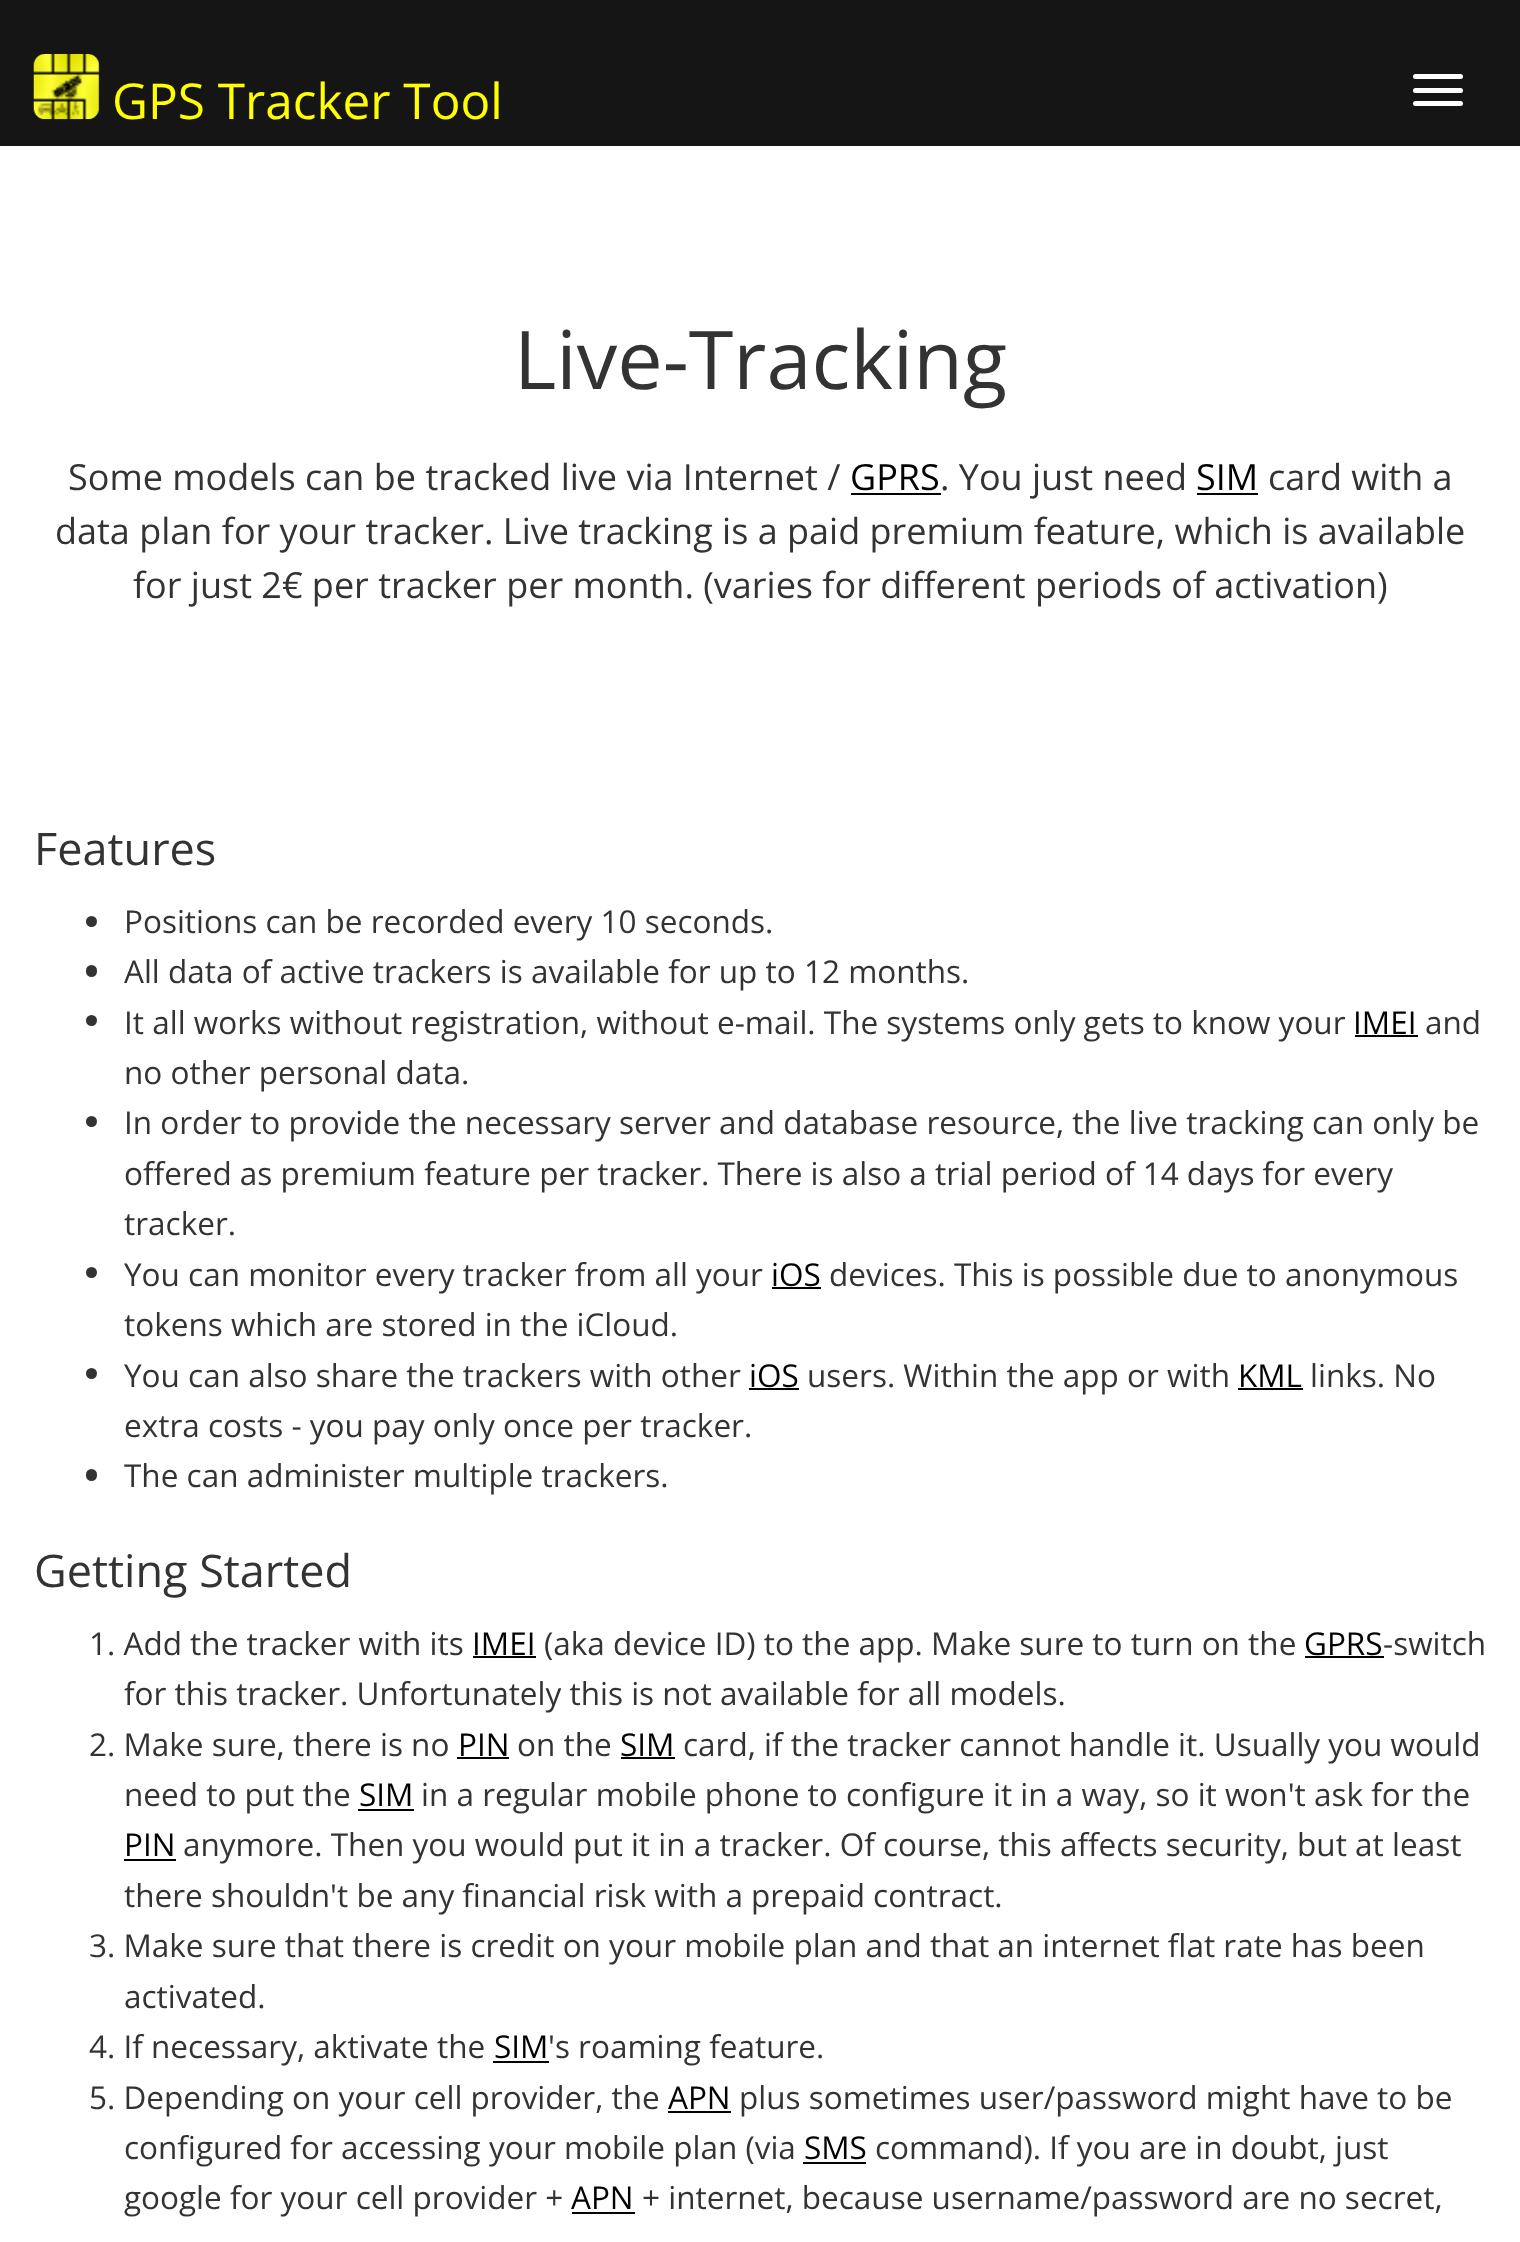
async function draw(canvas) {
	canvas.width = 1520;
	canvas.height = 2242;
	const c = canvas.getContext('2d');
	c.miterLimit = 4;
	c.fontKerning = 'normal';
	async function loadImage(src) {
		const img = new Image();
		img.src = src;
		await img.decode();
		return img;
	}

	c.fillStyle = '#fff';
	c.fillRect(0, 0, 1520, 2242);
	c.fillStyle = '#151515';
	c.fillRect(0, 0, 1520, 146);
	c.drawImage(await loadImage('img1.png'), 33, 54, 67, 66);
	c.font = '49.5px Open Sans';
	c.fillStyle = '#ff0';
	c.fillText('GPS Tracker Tool', 112, 119);
	c.fillStyle = '#fff';
	c.beginPath();
	c.roundRect(1413, 74, 50, 5, 2.5);
	c.fill();
	c.beginPath();
	c.roundRect(1413, 88, 50, 5, 2.5);
	c.fill();
	c.beginPath();
	c.roundRect(1413, 101, 50, 5, 2.5);
	c.fill();
	c.font = '81px Open Sans';
	c.fillStyle = '#333';
	c.fillText('Live-Tracking', 514, 389);
	c.font = '36px Open Sans';
	c.fillText('Some models can be tracked live via Internet /', 68, 490);
	c.fillStyle = '#000';
	c.fillText('GPRS', 850, 490);
	c.fillRect(851, 493, 90, 2);
	c.fillStyle = '#333';
	c.fillText('. You just need', 940, 490);
	c.fillStyle = '#000';
	c.fillText('SIM', 1196, 490);
	c.fillRect(1197, 493, 61, 2);
	c.fillStyle = '#333';
	for (const [text, x, y] of [
		['card with a', 1268, 490],
		['data plan for your tracker. Live tracking is a paid premium feature, which is available', 55, 544],
		['for just 2€ per tracker per month. (varies for different periods of activation)', 133, 598],
	]) {
		c.fillText(text, x, y);
	}
	c.font = '45px Open Sans';
	c.fillText('Features', 34, 865);
	c.beginPath();
	c.arc(91.5, 921.5, 5.5, 0, 2 * Math.PI);
	c.fill();
	c.font = '31.5px Open Sans';
	c.fillText('Positions can be recorded every 10 seconds.', 124, 933);
	c.beginPath();
	c.roundRect(86, 965, 11, 12, 5.5);
	c.fill();
	c.fillText('All data of active trackers is available for up to 12 months.', 124, 983);
	c.beginPath();
	c.arc(91.5, 1020.5, 5.5, 0, 2 * Math.PI);
	c.fill();
	c.fillText('It all works without registration, without e-mail. The systems only gets to know your', 124, 1034);
	c.fillStyle = '#000';
	c.fillText('IMEI', 1353, 1034);
	c.fillRect(1355, 1035, 63, 2);
	c.fillStyle = '#333';
	c.fillText('and', 1425, 1034);
	c.fillText('no other personal data.', 124, 1084);
	c.beginPath();
	c.arc(91.5, 1121.5, 5.5, 0, 2 * Math.PI);
	c.fill();
	for (const [text, x, y] of [
		['In order to provide the necessary server and database resource, the live tracking can only be', 124, 1134],
		['offered as premium feature per tracker. There is also a trial period of 14 days for every', 124, 1185],
		['tracker.', 124, 1235],
	]) {
		c.fillText(text, x, y);
	}
	c.beginPath();
	c.arc(91.5, 1272.5, 5.5, 0, 2 * Math.PI);
	c.fill();
	c.fillText('You can monitor every tracker from all your', 124, 1286);
	c.fillStyle = '#000';
	c.fillText('iOS', 771, 1286);
	c.fillRect(772, 1287, 49, 2);
	c.fillStyle = '#333';
	c.fillText('devices. This is possible due to anonymous', 829, 1286);
	c.fillText('tokens which are stored in the iCloud.', 124, 1336);
	c.beginPath();
	c.arc(91.5, 1373.5, 5.5, 0, 2 * Math.PI);
	c.fill();
	c.fillText('You can also share the trackers with other', 124, 1387);
	c.fillStyle = '#000';
	c.fillText('iOS', 749, 1387);
	c.fillRect(749, 1388, 50, 2);
	c.fillStyle = '#333';
	c.fillText('users. Within the app or with', 807, 1387);
	c.fillStyle = '#000';
	c.fillText('KML', 1238, 1387);
	c.fillRect(1238, 1388, 65, 2);
	c.fillStyle = '#333';
	c.fillText('links. No', 1310, 1387);
	c.fillText('extra costs - you pay only once per tracker.', 124, 1437);
	c.beginPath();
	c.roundRect(86, 1469, 11, 12, 5.5);
	c.fill();
	c.fillText('The can administer multiple trackers.', 124, 1487);
	c.font = '45px Open Sans';
	c.fillText('Getting Started', 34, 1587);
	c.font = '31.5px Open Sans';
	c.fillText('1. Add the tracker with its', 89, 1655);
	c.fillStyle = '#000';
	c.fillText('IMEI', 472, 1655);
	c.fillRect(473, 1656, 63, 2);
	c.fillStyle = '#333';
	c.fillText('(aka device ID) to the app. Make sure to turn on the', 544, 1655);
	c.fillStyle = '#000';
	c.fillText('GPRS', 1304, 1655);
	c.fillRect(1305, 1656, 79, 2);
	c.fillStyle = '#333';
	for (const [text, x, y] of [
		['-switch', 1383, 1655],
		['for this tracker. Unfortunately this is not available for all models.', 124, 1705],
		['2. Make sure, there is no', 89, 1756],
	]) {
		c.fillText(text, x, y);
	}
	c.fillStyle = '#000';
	c.fillText('PIN', 458, 1756);
	c.fillRect(457, 1757, 52, 2);
	c.fillStyle = '#333';
	c.fillText('on the', 517, 1756);
	c.fillStyle = '#000';
	c.fillText('SIM', 620, 1756);
	c.fillRect(621, 1757, 54, 2);
	c.fillStyle = '#333';
	c.fillText('card, if the tracker cannot handle it. Usually you would', 683, 1756);
	c.fillText('need to put the', 124, 1806);
	c.fillStyle = '#000';
	c.fillText('SIM', 359, 1806);
	c.fillRect(358, 1809, 56, 2);
	c.fillStyle = '#333';
	c.fillText('in a regular mobile phone to configure it in a way, so it won\'t ask for the', 421, 1806);
	c.fillStyle = '#000';
	c.fillText('PIN', 124, 1856);
	c.fillRect(124, 1859, 52, 2);
	c.fillStyle = '#333';
	for (const [text, x, y] of [
		['anymore. Then you would put it in a tracker. Of course, this affects security, but at least', 183, 1856],
		['there shouldn\'t be any financial risk with a prepaid contract.', 124, 1907],
		['3. Make sure that there is credit on your mobile plan and that an internet flat rate has been', 89, 1957],
		['activated.', 124, 2008],
		['4. If necessary, aktivate the', 89, 2058],
	]) {
		c.fillText(text, x, y);
	}
	c.fillStyle = '#000';
	c.fillText('SIM', 494, 2058);
	c.fillRect(493, 2061, 56, 2);
	c.fillStyle = '#333';
	c.fillText('\'s roaming feature.', 548, 2058);
	c.fillText('5. Depending on your cell provider, the', 89, 2109);
	c.fillStyle = '#000';
	c.fillText('APN', 668, 2109);
	c.fillRect(668, 2111, 63, 2);
	c.fillStyle = '#333';
	c.fillText('plus sometimes user/password might have to be', 739, 2109);
	c.fillText('configured for accessing your mobile plan (via', 124, 2159);
	c.fillStyle = '#000';
	c.fillText('SMS', 804, 2159);
	c.fillRect(803, 2162, 63, 2);
	c.fillStyle = '#333';
	c.fillText('command). If you are in doubt, just', 875, 2159);
	c.fillText('google for your cell provider +', 124, 2209);
	c.fillStyle = '#000';
	c.fillText('APN', 571, 2209);
	c.fillRect(572, 2212, 63, 2);
	c.fillStyle = '#333';
	c.fillText('+ internet, because username/password are no secret,', 642, 2209);
}

draw(document.querySelector('canvas'));
